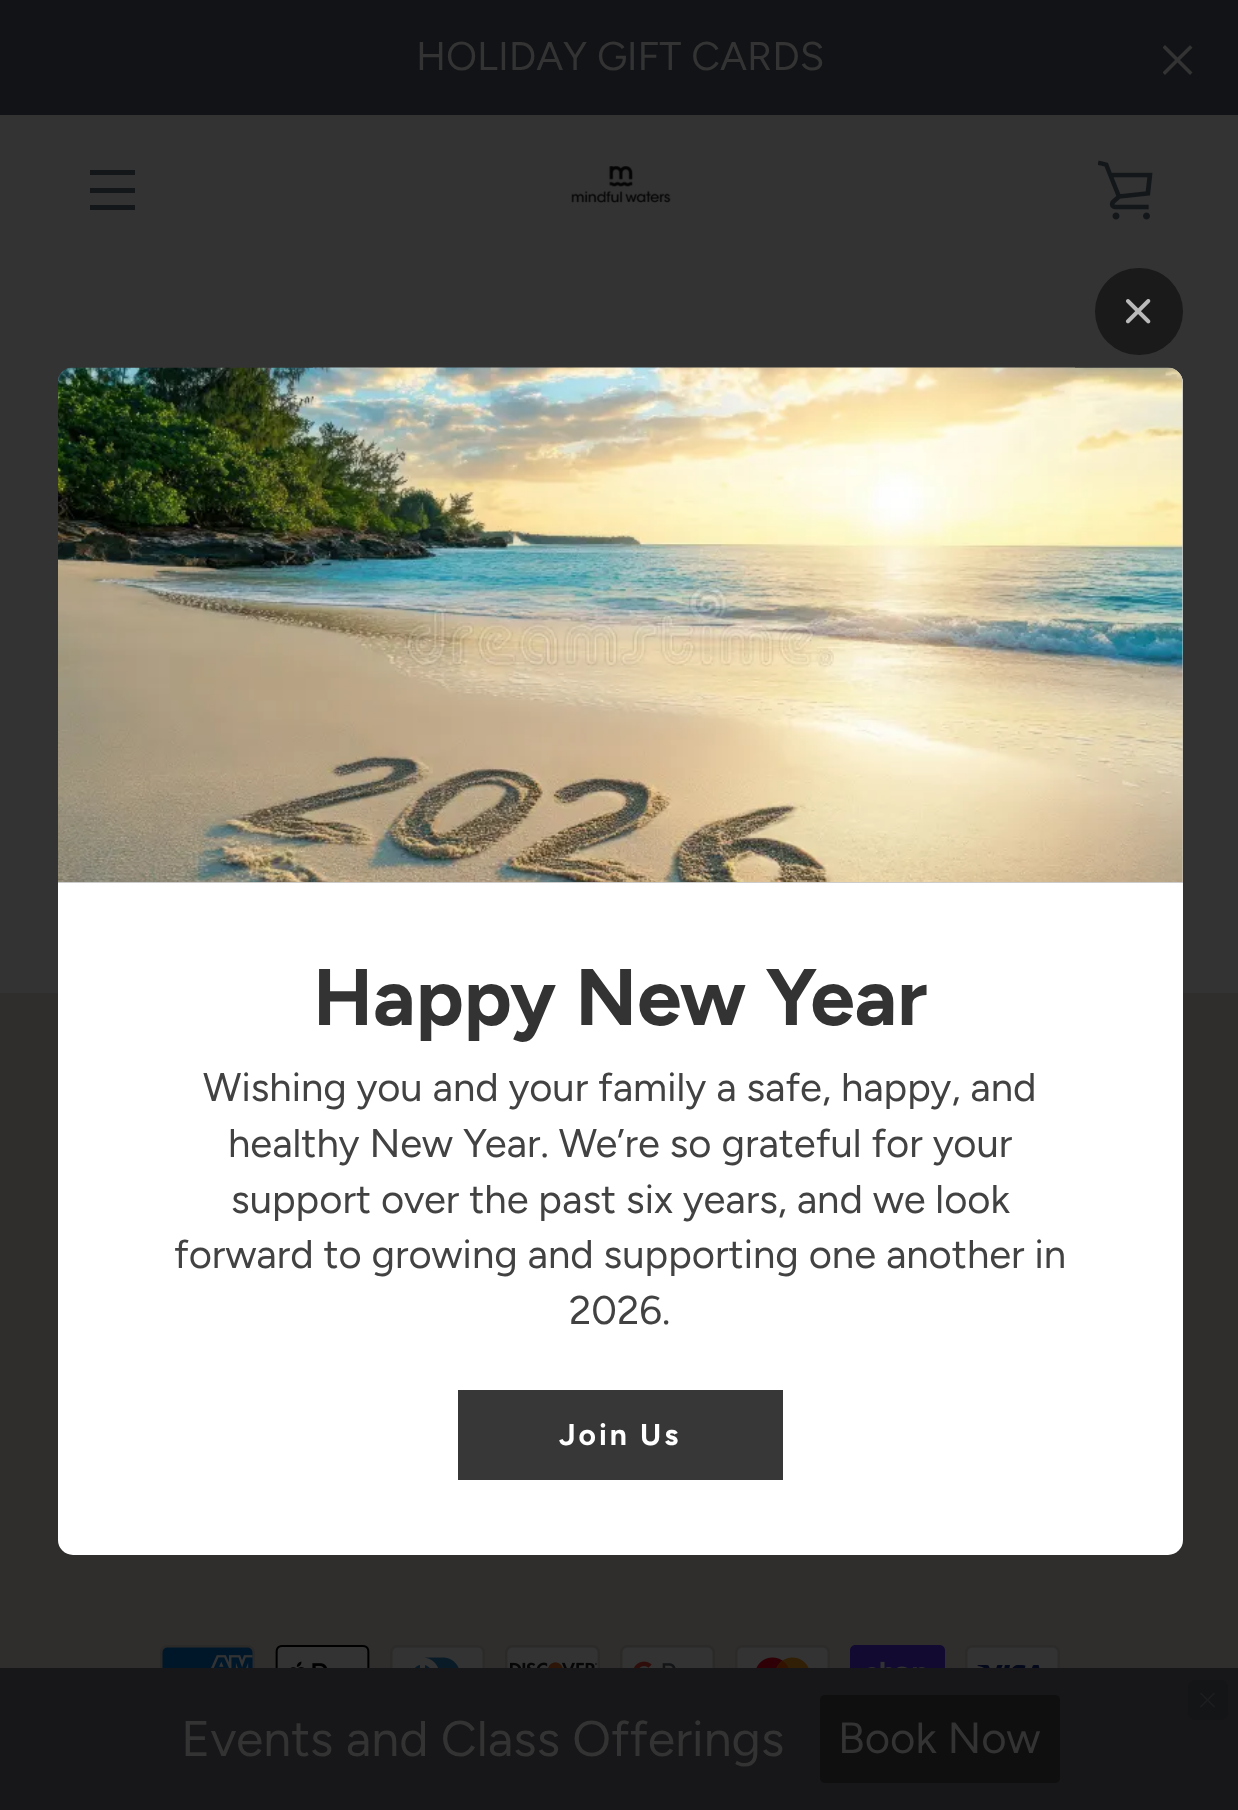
async function draw(canvas) {
	canvas.width = 1238;
	canvas.height = 1810;
	const c = canvas.getContext('2d');
	c.miterLimit = 4;
	c.fontKerning = 'normal';
	async function loadImage(src) {
		const img = new Image();
		img.src = src;
		await img.decode();
		return img;
	}

	c.fillStyle = '#333';
	c.fillRect(0, 0, 1238, 1810);
	c.fillStyle = '#111316';
	c.fillRect(0, 0, 1238, 115);
	c.font = '40px Figtree';
	c.fillStyle = '#333';
	c.fillText('HOLIDAY GIFT CARDS', 416, 70);
	c.drawImage(await loadImage('img1.png'), 1163, 45, 30, 30);
	for (const [x, y, w, h, color] of [
		[90, 170, 45, 5, '#14171a'],
		[90, 188, 45, 5, '#14171a'],
		[90, 205, 45, 5, '#14171a'],
	]) {
		c.fillStyle = color;
		c.fillRect(x, y, w, h);
	}
	c.drawImage(await loadImage('img2.png'), 571, 166, 100, 37);
	c.drawImage(await loadImage('img3.png'), 1098, 160, 55, 60);
	c.fillStyle = '#1a1a1a';
	c.beginPath();
	c.roundRect(1095, 268, 88, 87, 43.5);
	c.fill();
	c.drawImage(await loadImage('img4.png'), 1125, 299, 26, 25);
	c.fillStyle = '#2f2e2d';
	c.fillRect(0, 993, 1238, 675);
	c.fillStyle = '#fff';
	c.beginPath();
	c.roundRect(58, 368, 1125, 1187, 15);
	c.fill();
	c.fillStyle = '#ccc';
	c.beginPath();
	c.roundRect(58, 368, 1125, 515, [15, 15, 0, 0]);
	c.fill();
	c.drawImage(await loadImage('img5.png'), 58, 367, 1125, 515);
	c.font = 'bold 80px Figtree';
	c.fillStyle = '#333';
	c.fillText('Happy New Year', 313, 1025);
	c.font = '40px Figtree';
	c.fillStyle = '#424242';
	for (const [text, x, y] of [
		['Wishing you and your family a safe, happy, and', 203, 1101],
		['healthy New Year. We’re so grateful for your', 228, 1157],
		['support over the past six years, and we look', 231, 1213],
		['forward to growing and supporting one another in', 174, 1268],
		['2026.', 569, 1324],
	]) {
		c.fillText(text, x, y);
	}
	c.fillStyle = '#373737';
	c.fillRect(458, 1390, 325, 90);
	c.letterSpacing = '3px';
	c.font = 'bold 30px Figtree';
	c.fillStyle = '#fff';
	c.fillText('Join Us', 559, 1445);
	c.drawImage(await loadImage('img6.png'), 160, 1645, 95, 23);
	c.drawImage(await loadImage('img7.png'), 275, 1645, 95, 23);
	c.drawImage(await loadImage('img8.png'), 390, 1645, 95, 23);
	c.drawImage(await loadImage('img9.png'), 505, 1645, 95, 23);
	c.drawImage(await loadImage('img10.png'), 620, 1645, 95, 23);
	c.drawImage(await loadImage('img11.png'), 735, 1645, 95, 23);
	c.drawImage(await loadImage('img12.png'), 850, 1645, 95, 23);
	c.drawImage(await loadImage('img13.png'), 965, 1645, 95, 23);
	c.fillStyle = '#171719';
	c.fillRect(0, 1668, 1238, 142);
	c.fillStyle = '#141516';
	c.beginPath();
	c.roundRect(1188, 1680, 40, 40, 8);
	c.fill();
	c.drawImage(await loadImage('img14.png'), 1200, 1693, 15, 15);
	c.letterSpacing = '0px';
	c.font = '50px Figtree';
	c.fillStyle = '#333';
	c.fillText('Events and Class Offerings', 181, 1756);
	c.fillStyle = '#0f0f0f';
	c.beginPath();
	c.roundRect(820, 1695, 240, 88, 5);
	c.fill();
	c.font = '43.75px Figtree';
	c.fillStyle = '#333';
	c.fillText('Book Now', 838, 1753);
}

draw(document.querySelector('canvas'));
